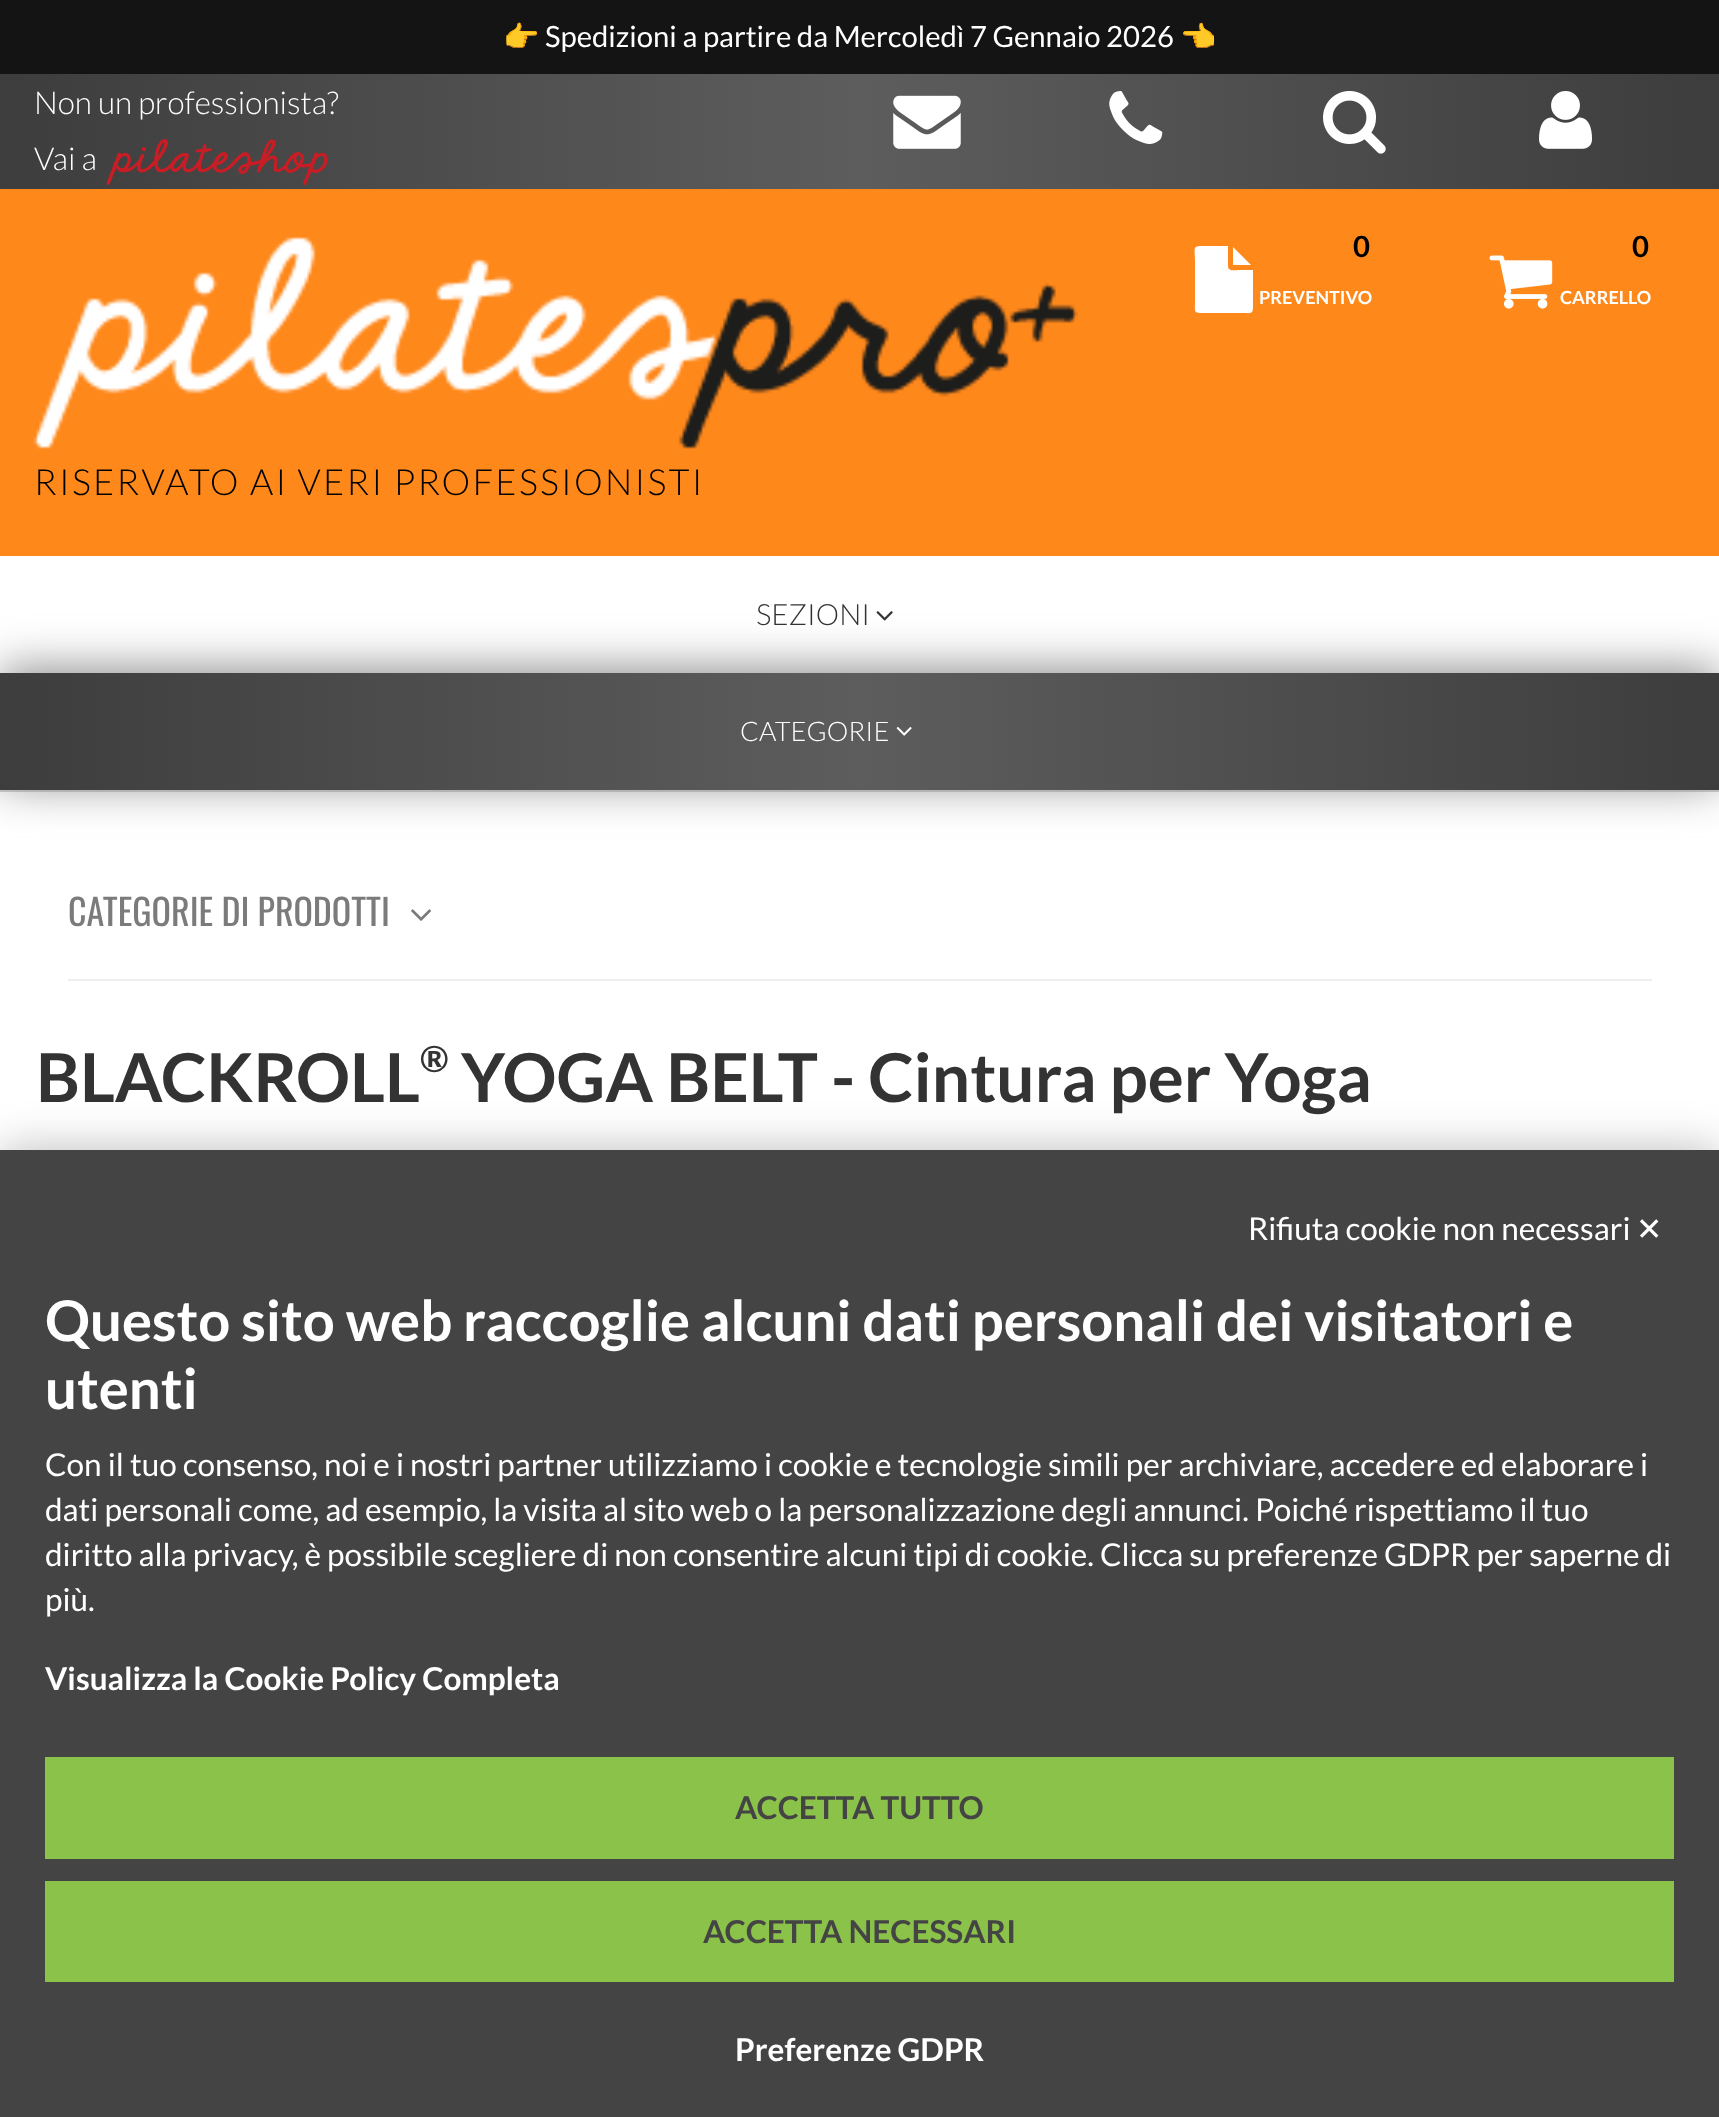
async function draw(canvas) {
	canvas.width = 1719;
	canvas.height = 2117;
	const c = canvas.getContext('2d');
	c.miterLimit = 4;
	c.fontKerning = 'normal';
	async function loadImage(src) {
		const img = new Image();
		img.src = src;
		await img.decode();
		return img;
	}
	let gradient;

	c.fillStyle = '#fff';
	c.fillRect(0, 0, 1719, 2117);
	c.fillStyle = '#141414';
	c.fillRect(0, 0, 1719, 74);
	c.font = '29.25px Noto Color Emoji';
	c.fillStyle = '#fff';
	c.fillText('👉', 503, 47);
	c.font = '29.25px Lato';
	c.fillText('Spedizioni a partire da Mercoledì 7 Gennaio 2026', 545, 47);
	c.font = '29.25px Noto Color Emoji';
	c.fillText('👈', 1180, 47);
	c.fillStyle = '#ccc';
	c.fillRect(0, 790, 1719, 2);
	gradient = c.createLinearGradient(0, 132, 1719, 132);
	gradient.addColorStop(0, '#3d3d3d');
	gradient.addColorStop(0.5, '#5d5d5d');
	gradient.addColorStop(1, '#3d3d3d');
	c.fillStyle = gradient;
	c.fillRect(0, 74, 1719, 115);
	c.font = '300 31.5px Lato';
	c.fillStyle = '#fff';
	c.fillText('Non un professionista?', 34, 114);
	c.fillText('Vai a', 34, 170);
	c.drawImage(await loadImage('img1.png'), 106, 139, 222, 46);
	c.drawImage(await loadImage('img2.png'), 893, 95, 68, 54);
	c.drawImage(await loadImage('img3.png'), 1109, 91, 54, 53);
	c.drawImage(await loadImage('img4.png'), 1323, 91, 63, 63);
	c.drawImage(await loadImage('img5.png'), 1539, 91, 53, 58);
	c.fillStyle = '#ff881b';
	c.fillRect(0, 189, 1719, 367);
	c.fillStyle = '#fff';
	c.beginPath();
	c.moveTo(1233, 265);
	c.lineTo(1233, 247);
	c.lineTo(1251, 265);
	c.closePath();
	c.moveTo(1228, 266);
	c.bezierCurveTo(1228, 272, 1236, 270, 1239, 270);
	c.lineTo(1253, 270);
	c.lineTo(1253, 303);
	c.bezierCurveTo(1253, 315, 1253, 313, 1241, 313);
	c.lineTo(1207, 313);
	c.bezierCurveTo(1193, 313, 1195, 314, 1195, 300);
	c.lineTo(1195, 260);
	c.bezierCurveTo(1195, 248, 1192, 246, 1203, 246);
	c.lineTo(1228, 246);
	c.closePath();
	c.fill();
	c.font = 'bold 29.25px Lato';
	c.fillStyle = '#000';
	c.fillText('0', 1353, 257);
	c.font = 'bold 18px Lato';
	c.fillStyle = '#fff';
	c.fillText('PREVENTIVO', 1259, 304);
	c.font = 'bold 29.25px Lato';
	c.fillStyle = '#000';
	c.fillText('0', 1632, 257);
	c.drawImage(await loadImage('img6.png'), 1489, 255, 64, 54);
	c.font = 'bold 18px Lato';
	c.fillStyle = '#fff';
	c.fillText('CARRELLO', 1560, 304);
	c.drawImage(await loadImage('img7.png'), 33, 237, 1045, 212);
	c.letterSpacing = '2.25px';
	c.font = '300 36px Lato';
	c.fillStyle = '#000';
	c.fillText('RISERVATO AI VERI PROFESSIONISTI', 34, 495);
	c.fillStyle = '#908f8f';
	c.filter = 'blur(22.5px)';
	c.beginPath();
	c.rect(0, 668, 1719, 117);
	c.fill();
	c.filter = 'none';
	c.letterSpacing = '0px';
	c.font = '300 29.25px Lato';
	c.fillStyle = '#333';
	c.fillText('SEZIONI', 756, 625);
	c.drawImage(await loadImage('img8.png'), 876, 611, 17, 10);
	gradient = c.createLinearGradient(0, 731, 1719, 731);
	gradient.addColorStop(0, '#3d3d3d');
	gradient.addColorStop(0.5, '#5d5d5d');
	gradient.addColorStop(1, '#3d3d3d');
	c.fillStyle = gradient;
	c.fillRect(0, 673, 1719, 117);
	c.font = '300 27px Lato';
	c.fillStyle = '#fff';
	c.fillText('CATEGORIE', 740, 741);
	c.drawImage(await loadImage('img9.png'), 896, 727, 16, 9);
	c.font = '36px Oswald';
	c.fillStyle = '#7b7b7b';
	c.fillText('CATEGORIE DI PRODOTTI', 68, 926);
	c.drawImage(await loadImage('img10.png'), 411, 909, 20, 12);
	c.fillStyle = '#eee';
	c.fillRect(68, 979, 1584, 2);
	c.font = 'bold 67.5px Lato';
	c.fillStyle = '#333';
	c.fillText('BLACKROLL', 36, 1102);
	c.font = 'bold 36px Lato';
	c.fillText('®', 420, 1072);
	c.font = 'bold 67.5px Lato';
	c.fillText('YOGA BELT - Cintura per Yoga', 461, 1102);
	c.fillStyle = '#00000045';
	c.filter = 'blur(22.5px)';
	c.beginPath();
	c.rect(0, 1150, 1719, 967);
	c.fill();
	c.filter = 'none';
	c.fillStyle = '#444';
	c.fillRect(0, 1150, 1719, 967);
	c.font = '31.5px Lato';
	c.fillStyle = '#fff';
	c.fillText('Rifiuta cookie non necessari', 1248, 1240);
	c.font = '31.5px DejaVu Sans';
	c.fillText('✕', 1636, 1240);
	c.font = 'bold 56.25px Lato';
	c.fillText('Questo sito web raccoglie alcuni dati personali dei visitatori e', 45, 1341);
	c.fillText('utenti', 45, 1409);
	c.font = '31.5px Lato';
	for (const [text, x, y] of [
		['Con il tuo consenso, noi e i nostri partner utilizziamo i cookie e tecnologie simili per archiviare, accedere ed elaborare i', 45, 1476],
		['dati personali come, ad esempio, la visita al sito web o la personalizzazione degli annunci. Poiché rispettiamo il tuo', 45, 1521],
		['diritto alla privacy, è possibile scegliere di non consentire alcuni tipi di cookie. Clicca su preferenze GDPR per saperne di', 45, 1566],
		['più.', 45, 1611],
	]) {
		c.fillText(text, x, y);
	}
	c.font = 'bold 31.5px Lato';
	c.fillText('Visualizza la Cookie Policy Completa', 45, 1690);
	c.fillStyle = '#8bc34a';
	c.fillRect(45, 1757, 1629, 102);
	c.fillStyle = '#444';
	c.fillText('ACCETTA TUTTO', 735, 1819);
	c.fillStyle = '#8bc34a';
	c.fillRect(45, 1881, 1629, 101);
	c.fillStyle = '#444';
	c.fillText('ACCETTA NECESSARI', 703, 1943);
	c.fillStyle = '#fff';
	c.fillText('Preferenze GDPR', 735, 2061);
}

draw(document.querySelector('canvas'));
